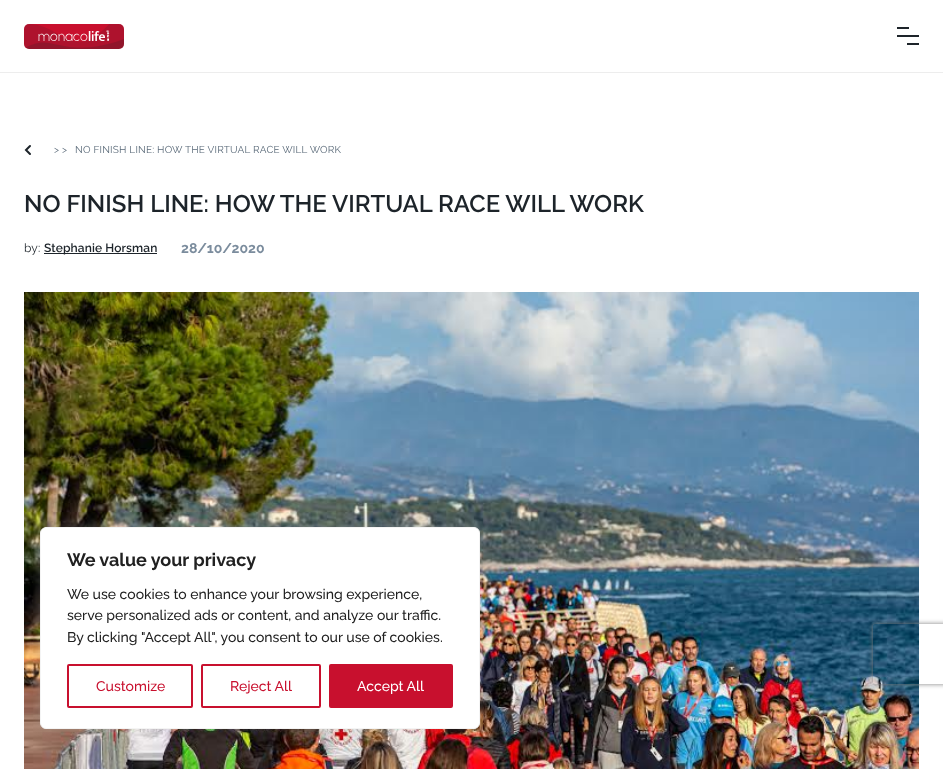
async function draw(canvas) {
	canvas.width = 943;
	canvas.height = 769;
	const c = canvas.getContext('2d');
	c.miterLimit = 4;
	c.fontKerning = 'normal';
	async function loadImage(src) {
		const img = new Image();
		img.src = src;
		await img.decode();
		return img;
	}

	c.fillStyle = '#fff';
	c.fillRect(0, 0, 943, 769);
	c.fillStyle = '#ededed';
	c.fillRect(0, 72, 943, 1);
	c.drawImage(await loadImage('img1.png'), 24, 24, 100, 25);
	for (const [x, y, w, h, color] of [
		[897, 27, 12, 2, '#1d242a'],
		[897, 35, 22, 2, '#1d242a'],
		[907, 43, 12, 2, '#1d242a'],
	]) {
		c.fillStyle = color;
		c.fillRect(x, y, w, h);
	}
	c.beginPath();
	c.moveTo(30, 154);
	c.lineTo(26, 150);
	c.lineTo(30, 146);
	c.strokeStyle = '#1d242a';
	c.lineWidth = 2;
	c.lineCap = 'round';
	c.stroke();
	c.letterSpacing = '0.2px';
	c.font = '10px Raleway';
	c.fillStyle = '#596978';
	c.fillText('> >', 54, 153);
	c.fillText('NO FINISH LINE: HOW THE VIRTUAL RACE WILL WORK', 75, 153);
	c.letterSpacing = '0px';
	c.font = '600 24px Raleway';
	c.fillStyle = '#1d242a';
	c.fillText('NO FINISH LINE: HOW THE VIRTUAL RACE WILL WORK', 24, 212);
	c.letterSpacing = '0.1px';
	c.font = '12px Raleway';
	c.fillText('by:', 24, 252);
	c.fillRect(44, 253, 113, 1);
	c.font = '600 12px Raleway';
	c.fillText('Stephanie Horsman', 44, 252);
	c.letterSpacing = '0px';
	c.font = 'bold 14px Raleway';
	c.fillStyle = '#7b8c9d';
	c.fillText('28/10/2020', 181, 253);
	c.drawImage(await loadImage('img2.png'), 24, 292, 895, 477);
	c.fillStyle = '#acabab4d';
	c.filter = 'blur(5px)';
	c.beginPath();
	c.roundRect(40, 526, 440, 202, 6);
	c.fill();
	c.filter = 'none';
	c.fillStyle = '#fff';
	c.beginPath();
	c.roundRect(40.5, 527.5, 439, 201, 5.5);
	c.fill();
	c.strokeStyle = '#f4f4f4';
	c.lineWidth = 1;
	c.stroke();
	c.font = 'bold 18px Raleway';
	c.fillStyle = '#212121';
	c.fillText('We value your privacy', 67, 566);
	c.font = '500 14px Raleway';
	for (const [text, x, y] of [
		['We use cookies to enhance your browsing experience,', 67, 599],
		['serve personalized ads or content, and analyze our traffic.', 67, 620],
		['By clicking "Accept All", you consent to our use of cookies.', 67, 642],
	]) {
		c.fillText(text, x, y);
	}
	c.beginPath();
	c.roundRect(68, 665, 124, 42, 1);
	c.strokeStyle = '#c8102e';
	c.lineWidth = 2;
	c.stroke();
	c.fillStyle = '#c8102e';
	c.fillText('Customize', 96, 691);
	c.beginPath();
	c.roundRect(202, 665, 118, 42, 1);
	c.stroke();
	c.fillText('Reject All', 230, 691);
	c.beginPath();
	c.roundRect(330, 665, 122, 42, 1);
	c.fill();
	c.stroke();
	c.fillStyle = '#fff';
	c.fillText('Accept All', 357, 691);
	c.save();
	c.beginPath();
	c.moveTo(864, 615);
	c.lineTo(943, 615);
	c.lineTo(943, 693);
	c.lineTo(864, 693);
	c.closePath();
	c.moveTo(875, 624);
	c.lineTo(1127, 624);
	c.bezierCurveTo(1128, 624, 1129, 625, 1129, 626);
	c.lineTo(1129, 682);
	c.bezierCurveTo(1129, 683, 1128, 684, 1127, 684);
	c.lineTo(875, 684);
	c.bezierCurveTo(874, 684, 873, 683, 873, 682);
	c.lineTo(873, 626);
	c.bezierCurveTo(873, 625, 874, 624, 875, 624);
	c.closePath();
	c.clip('evenodd');
	c.fillStyle = '#808080';
	c.filter = 'blur(2.5px)';
	c.beginPath();
	c.roundRect(873, 624, 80, 60, 2);
	c.fill();
	c.filter = 'none';
	c.restore();
}

draw(document.querySelector('canvas'));
